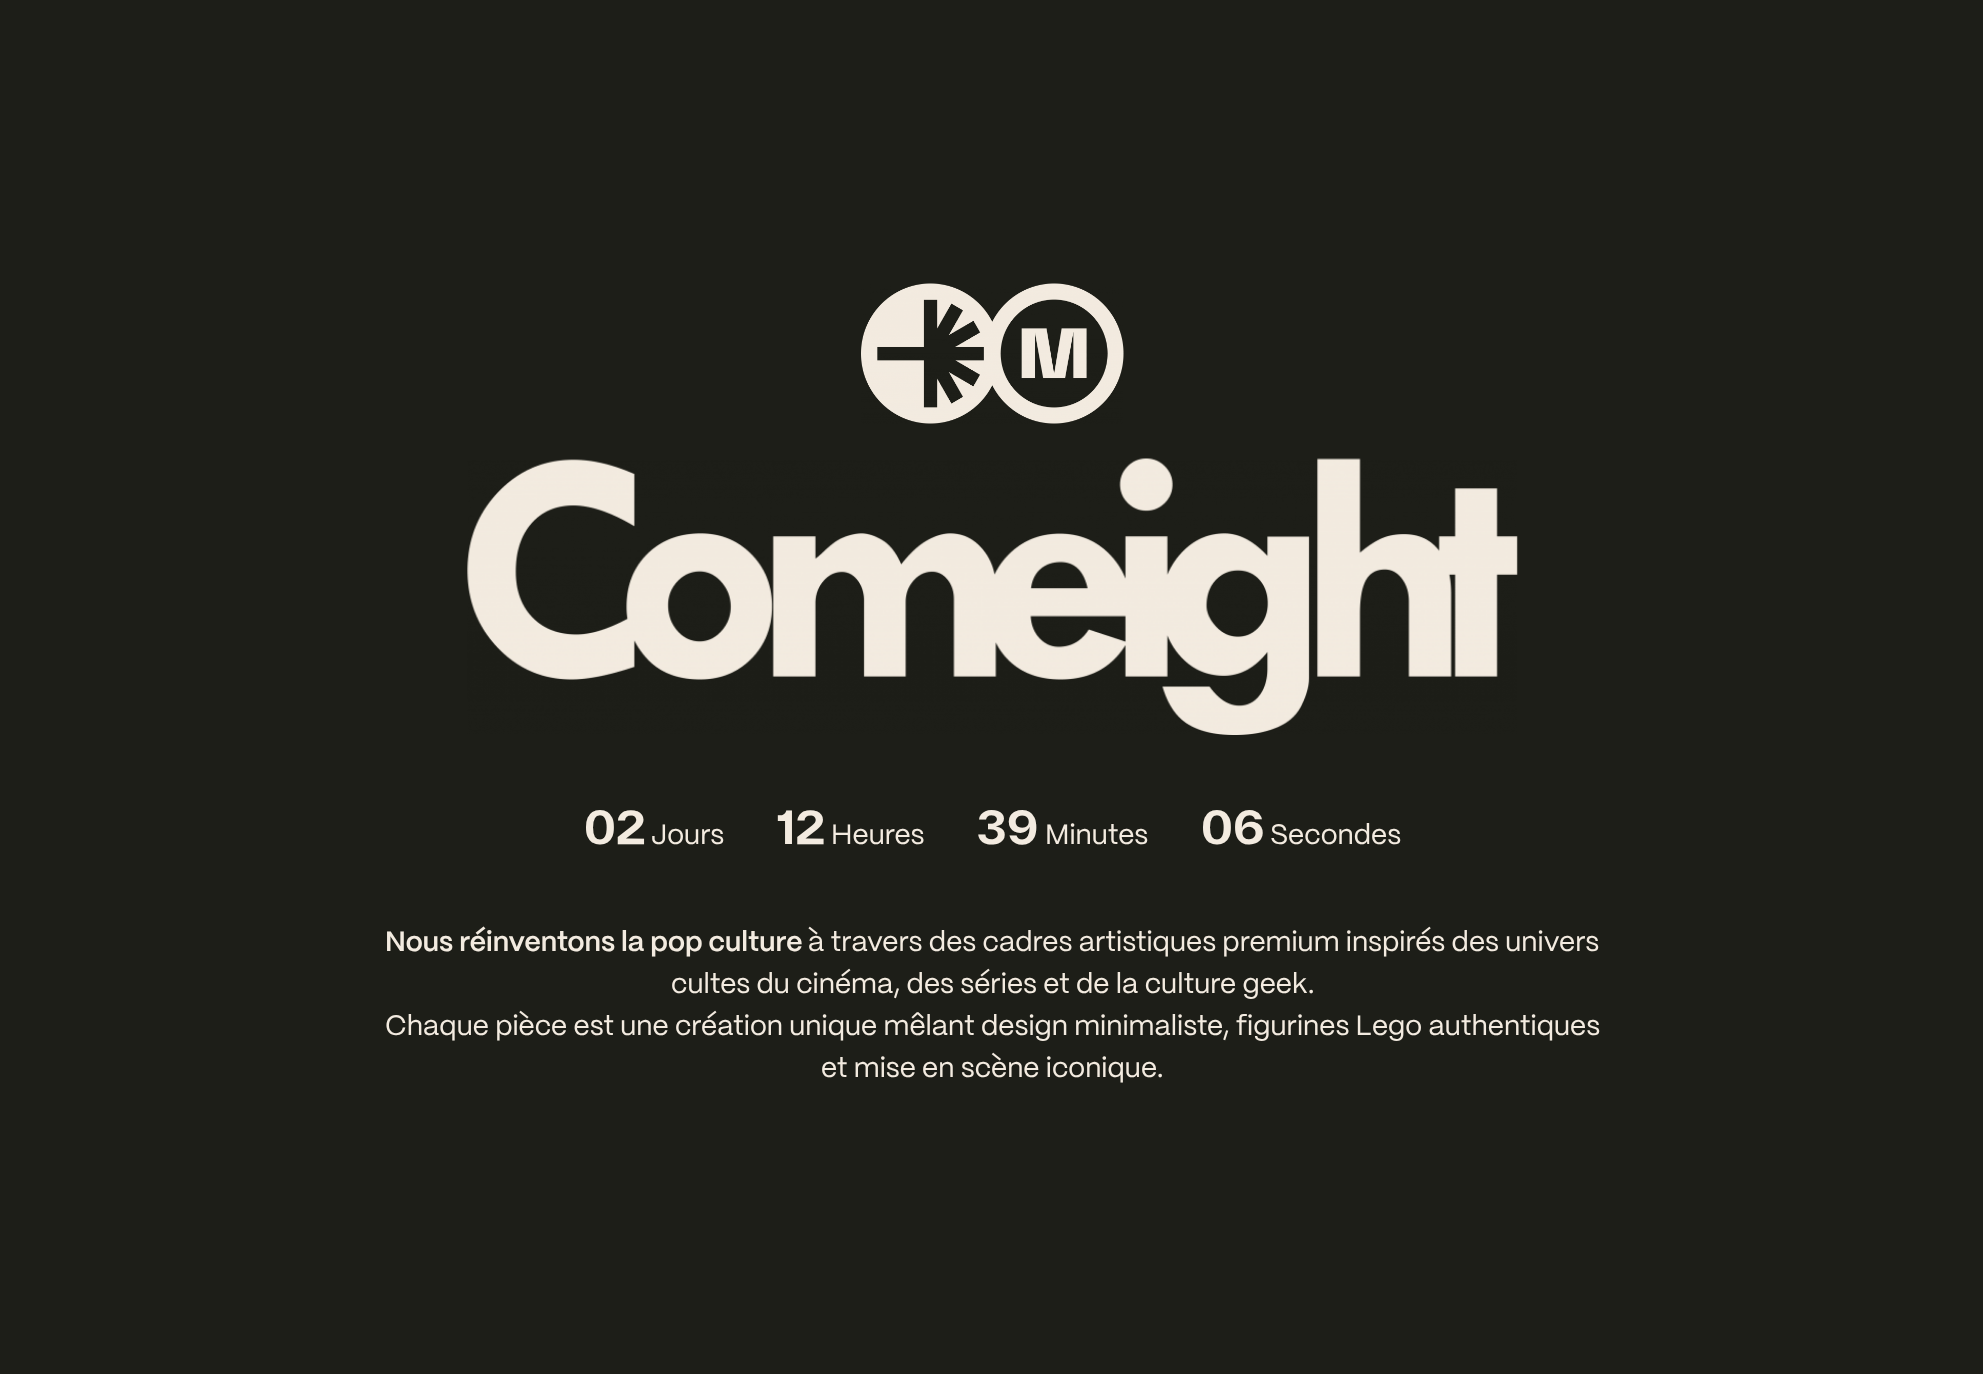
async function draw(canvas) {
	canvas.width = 1983;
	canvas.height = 1374;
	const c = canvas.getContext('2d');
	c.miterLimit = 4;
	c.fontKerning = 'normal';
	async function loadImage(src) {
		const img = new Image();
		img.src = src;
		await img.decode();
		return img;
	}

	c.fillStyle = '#1d1e18';
	c.fillRect(0, 0, 1983, 1374);
	c.drawImage(await loadImage('img1.png'), 861, 283, 263, 141);
	c.drawImage(await loadImage('img2.png'), 467, 458, 1051, 277);
	c.font = 'bold 44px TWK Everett';
	c.fillStyle = '#f3ebe0';
	c.fillText('02', 584, 844);
	c.font = '28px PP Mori';
	c.fillText('Jours', 651, 844);
	c.font = 'bold 44px TWK Everett';
	c.fillText('12', 777, 844);
	c.font = '28px PP Mori';
	c.fillText('Heures', 831, 844);
	c.font = 'bold 44px TWK Everett';
	c.fillText('39', 977, 844);
	c.font = '28px PP Mori';
	c.fillText('Minutes', 1045, 844);
	c.font = 'bold 44px TWK Everett';
	c.fillText('06', 1201, 844);
	c.font = '28px PP Mori';
	c.fillText('Secondes', 1270, 844);
	c.font = '600 28px PP Mori';
	c.fillText('Nous réinventons la pop culture', 385, 951);
	c.font = '28px PP Mori';
	for (const [text, x, y] of [
		['à travers des cadres artistiques premium inspirés des univers', 808, 951],
		['cultes du cinéma, des séries et de la culture geek.', 671, 993],
		['Chaque pièce est une création unique mêlant design minimaliste, figurines Lego authentiques', 385, 1035],
		['et mise en scène iconique.', 821, 1077],
	]) {
		c.fillText(text, x, y);
	}
}

draw(document.querySelector('canvas'));
